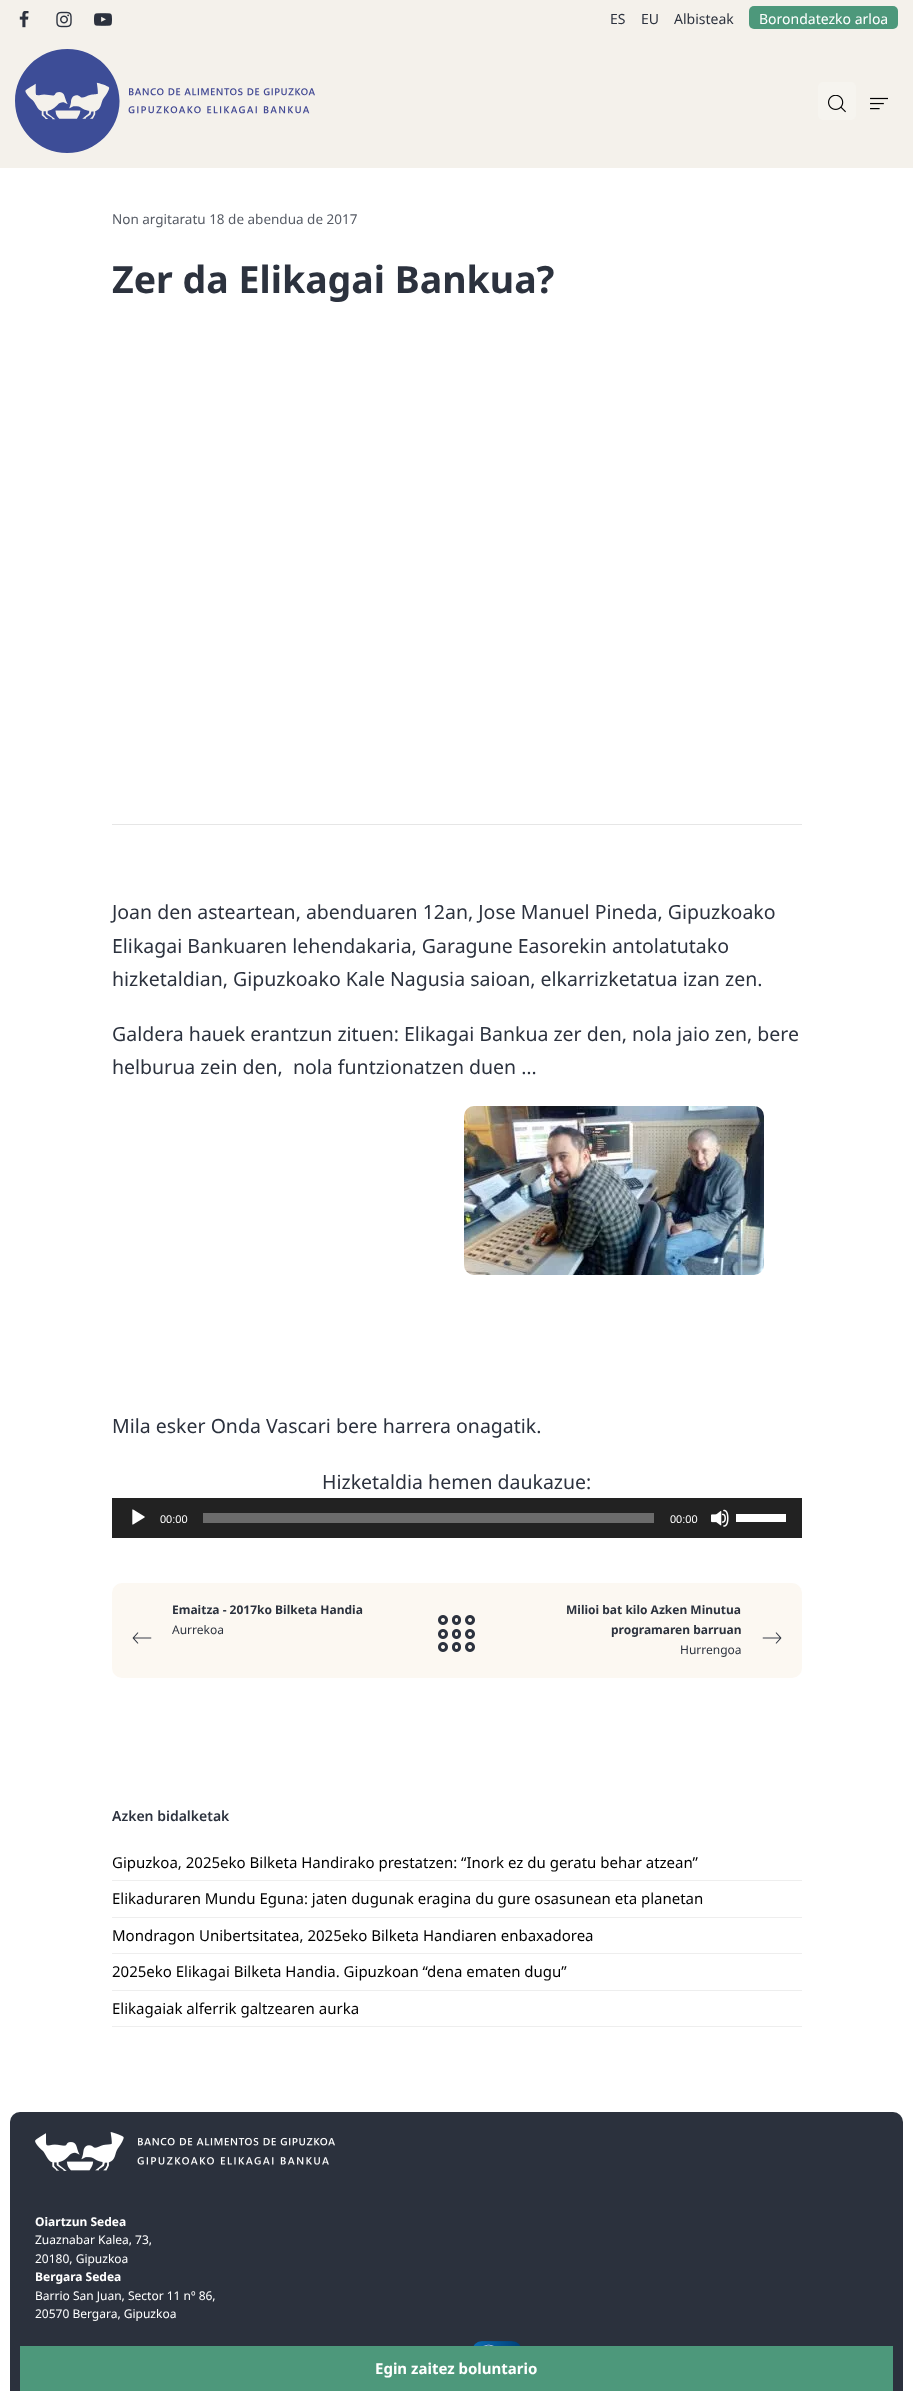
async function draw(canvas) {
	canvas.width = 913;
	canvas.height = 2391;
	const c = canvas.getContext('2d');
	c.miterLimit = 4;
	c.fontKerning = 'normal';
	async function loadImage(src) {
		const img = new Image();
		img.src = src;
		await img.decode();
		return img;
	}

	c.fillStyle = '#fff';
	c.fillRect(0, 0, 913, 2391);
	c.fillStyle = '#f4f1eb';
	c.fillRect(0, 0, 913, 168);
	c.drawImage(await loadImage('img1.png'), 15, 49, 300, 104);
	c.fillStyle = '#f6f4ef';
	c.beginPath();
	c.roundRect(818, 82, 38, 38, 5);
	c.fill();
	c.drawImage(await loadImage('img2.png'), 828, 95, 18, 18);
	c.drawImage(await loadImage('img3.png'), 870, 97, 18, 13);
	c.drawImage(await loadImage('img4.png'), 19, 11, 10, 17);
	c.drawImage(await loadImage('img5.png'), 56, 11, 16, 17);
	c.drawImage(await loadImage('img6.png'), 94, 13, 18, 13);
	c.font = '14px Noto Sans';
	c.fillStyle = '#2c323e';
	for (const [text, x, y] of [
		['ES', 610, 24],
		['EU', 641, 24],
		['Albisteak', 674, 24],
	]) {
		c.fillText(text, x, y);
	}
	c.fillStyle = '#4d987b';
	c.beginPath();
	c.roundRect(749, 6, 149, 23, 5);
	c.fill();
	c.fillStyle = '#fff';
	c.fillText('Borondatezko arloa', 759, 24);
	c.font = '13.5px Noto Sans';
	c.fillStyle = '#565b65';
	c.fillText('Non argitaratu 18 de abendua de 2017', 112, 224);
	c.font = 'bold 37.5px Noto Sans';
	c.fillStyle = '#2c323e';
	c.fillText('Zer da Elikagai Bankua?', 112, 293);
	c.fillStyle = '#e6e6e6';
	c.fillRect(112, 824, 690, 1);
	c.font = '19.5px Noto Sans';
	c.fillStyle = '#2c323e';
	for (const [text, x, y] of [
		['Joan den asteartean, abenduaren 12an, Jose Manuel Pineda, Gipuzkoako', 112, 919],
		['Elikagai Bankuaren lehendakaria, Garagune Easorekin antolatutako', 112, 953],
		['hizketaldian, Gipuzkoako Kale Nagusia saioan, elkarrizketatua izan zen.', 112, 986],
		['Galdera hauek erantzun zituen: Elikagai Bankua zer den, nola jaio zen, bere', 112, 1041],
		['helburua zein den,  nola funtzionatzen duen …', 112, 1074],
	]) {
		c.fillText(text, x, y);
	}
	c.drawImage(await loadImage('img7.png'), 464, 1106, 300, 169);
	c.fillText('Mila esker Onda Vascari bere harrera onagatik.', 112, 1433);
	c.fillText('Hizketaldia hemen daukazue:', 322, 1489);
	c.fillStyle = '#222';
	c.fillRect(112, 1498, 690, 40);
	c.drawImage(await loadImage('img8.png'), 132, 1509, 13, 16);
	c.font = '11px Liberation Sans';
	c.fillStyle = '#fff';
	c.fillText('00:00', 160, 1523);
	c.fillStyle = '#6b6b6b';
	c.fillRect(203, 1513, 451, 10);
	c.fillStyle = '#fff';
	c.fillText('00:00', 670, 1523);
	c.drawImage(await loadImage('img9.png'), 711, 1509, 18, 18);
	c.fillRect(736, 1514, 50, 8);
	c.fillStyle = '#fcf8f2';
	c.beginPath();
	c.roundRect(112, 1583, 690, 95, 10);
	c.fill();
	c.font = 'bold 12px Noto Sans';
	c.fillStyle = '#2c323e';
	c.fillText('Emaitza - 2017ko Bilketa Handia', 172, 1614);
	c.font = '12px Noto Sans';
	c.fillText('Aurrekoa', 172, 1634);
	c.drawImage(await loadImage('img10.png'), 132, 1632, 20, 12);
	c.drawImage(await loadImage('img11.png'), 438, 1615, 37, 37);
	c.font = 'bold 12px Noto Sans';
	c.fillText('Milioi bat kilo Azken Minutua', 566, 1614);
	c.fillText('programaren barruan', 611, 1634);
	c.drawImage(await loadImage('img12.png'), 762, 1632, 20, 12);
	c.font = '12px Noto Sans';
	c.fillText('Hurrengoa', 680, 1654);
	c.font = '600 14px Noto Sans';
	c.fillText('Azken bidalketak', 112, 1821);
	c.fillStyle = '#eee';
	c.fillRect(112, 1880, 690, 1);
	c.font = '15px Noto Sans';
	c.fillStyle = '#000';
	c.fillText('Gipuzkoa, 2025eko Bilketa Handirako prestatzen: “Inork ez du geratu behar atzean”', 112, 1868);
	c.fillStyle = '#eee';
	c.fillRect(112, 1917, 690, 1);
	c.fillStyle = '#000';
	c.fillText('Elikaduraren Mundu Eguna: jaten dugunak eragina du gure osasunean eta planetan', 112, 1904);
	c.fillStyle = '#eee';
	c.fillRect(112, 1953, 690, 1);
	c.fillStyle = '#000';
	c.fillText('Mondragon Unibertsitatea, 2025eko Bilketa Handiaren enbaxadorea', 112, 1941);
	c.fillStyle = '#eee';
	c.fillRect(112, 1990, 690, 1);
	c.fillStyle = '#000';
	c.fillText('2025eko Elikagai Bilketa Handia. Gipuzkoan “dena ematen dugu”', 112, 1977);
	c.fillStyle = '#eee';
	c.fillRect(112, 2026, 690, 1);
	c.fillStyle = '#000';
	c.fillText('Elikagaiak alferrik galtzearen aurka', 112, 2014);
	c.fillStyle = '#2c323e';
	c.beginPath();
	c.roundRect(10, 2112, 893, 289, 10);
	c.fill();
	c.fillStyle = '#2c323e1a';
	c.beginPath();
	c.roundRect(10, 2112, 893, 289, 10);
	c.fill();
	c.drawImage(await loadImage('img13.png'), 35, 2132, 300, 39);
	c.font = 'bold 12px Noto Sans';
	c.fillStyle = '#fff';
	c.fillText('Oiartzun Sedea', 35, 2226);
	c.font = '12px Noto Sans';
	c.fillText('Zuaznabar Kalea, 73,', 35, 2244);
	c.fillText('20180, Gipuzkoa', 35, 2263);
	c.font = 'bold 12px Noto Sans';
	c.fillText('Bergara Sedea', 35, 2281);
	c.font = '12px Noto Sans';
	c.fillText('Barrio San Juan, Sector 11 nº 86,', 35, 2300);
	c.fillText('20570 Bergara, Gipuzkoa', 35, 2318);
	c.drawImage(await loadImage('img14.png'), 473, 2341, 48, 5);
	c.fillStyle = '#4d987b';
	c.fillRect(20, 2346, 873, 45);
	c.font = 'bold 15px Noto Sans';
	c.fillStyle = '#fff';
	c.fillText('Egin zaitez boluntario', 375, 2374);
}

draw(document.querySelector('canvas'));
